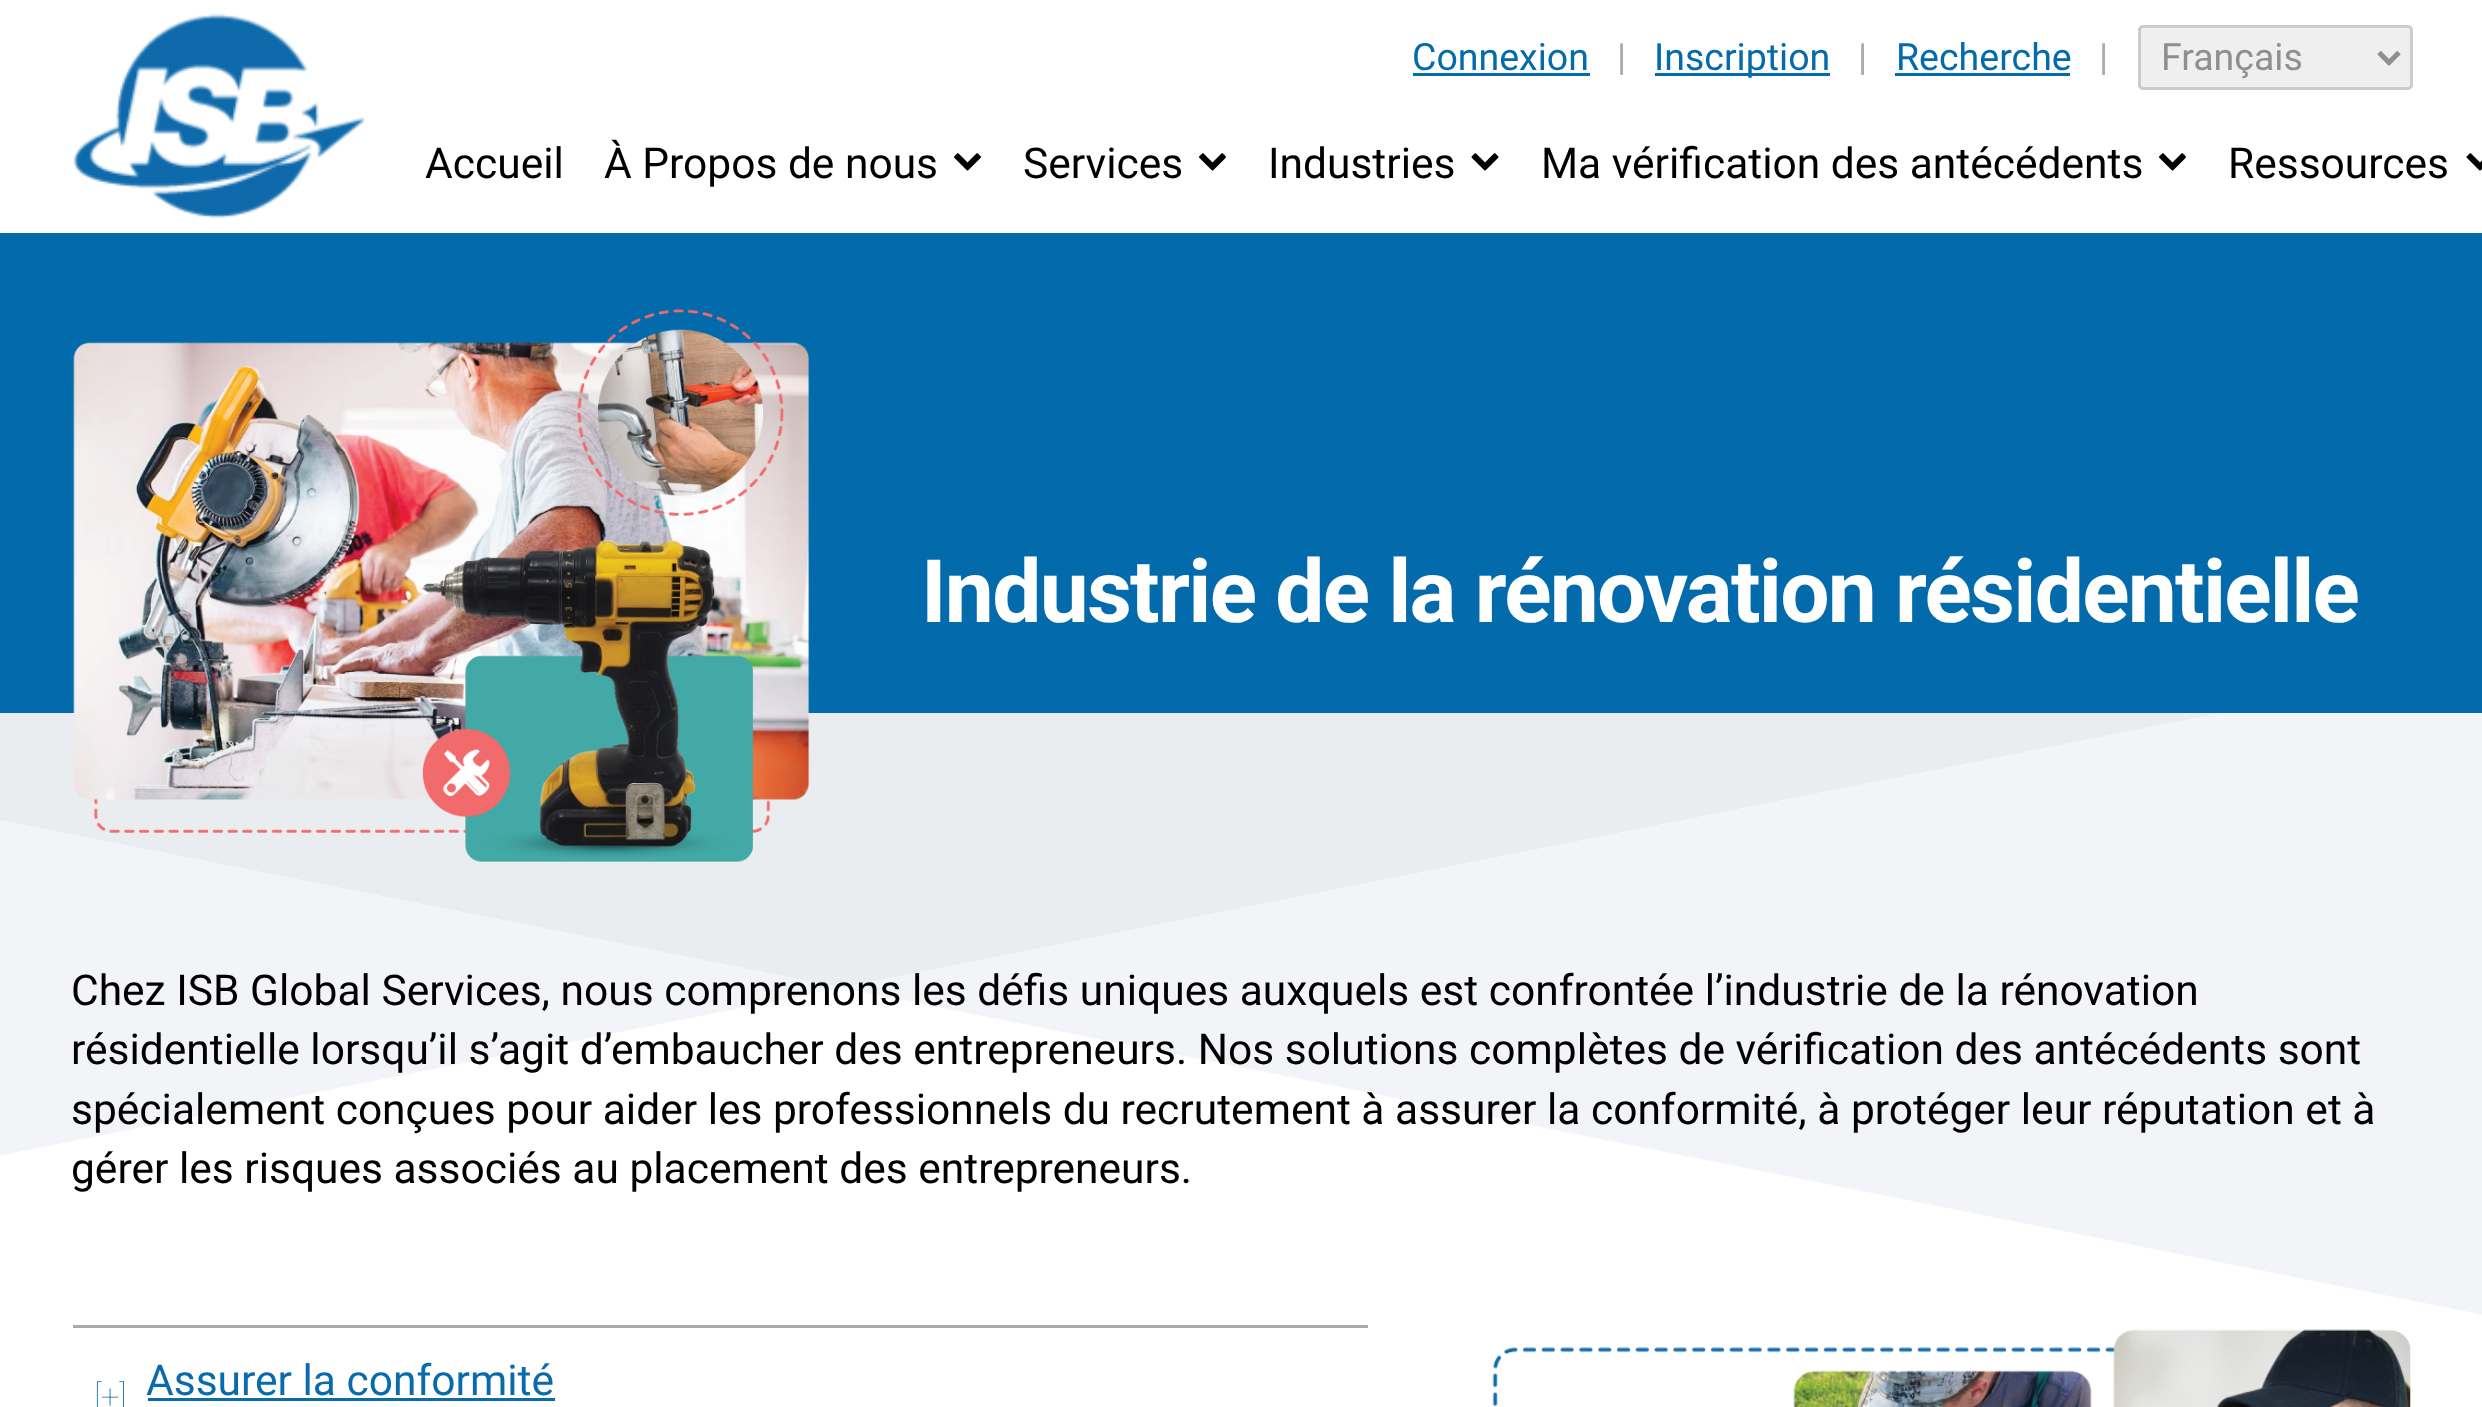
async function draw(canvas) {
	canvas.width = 2482;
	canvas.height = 1407;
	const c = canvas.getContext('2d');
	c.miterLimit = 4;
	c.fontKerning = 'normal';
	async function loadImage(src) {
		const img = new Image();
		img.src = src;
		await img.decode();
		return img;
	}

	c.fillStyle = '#fff';
	c.fillRect(0, 0, 2482, 1407);
	c.drawImage(await loadImage('img1.png'), 73, 13, 292, 206);
	c.font = '37.5px Roboto';
	c.fillStyle = '#036aab';
	c.fillText('Connexion', 1412, 70);
	c.fillRect(1413, 73, 177, 3);
	c.fillStyle = '#aaa';
	c.fillText('|', 1617, 70);
	c.fillStyle = '#036aab';
	c.fillRect(1655, 73, 175, 3);
	c.fillText('Inscription', 1654, 70);
	c.fillStyle = '#aaa';
	c.fillText('|', 1858, 70);
	c.fillStyle = '#036aab';
	c.fillText('Recherche', 1896, 70);
	c.fillRect(1895, 73, 175, 3);
	c.fillStyle = '#aaa';
	c.fillText('|', 2099, 70);
	c.fillStyle = '#efefef';
	c.beginPath();
	c.roundRect(2139.5, 26.5, 272, 62, 3.5);
	c.fill();
	c.strokeStyle = '#ccc';
	c.lineWidth = 3;
	c.stroke();
	c.beginPath();
	c.moveTo(2379, 52.5);
	c.lineTo(2389, 62.5);
	c.lineTo(2399, 52.5);
	c.strokeStyle = '#8f8f8f';
	c.lineWidth = 5;
	c.stroke();
	c.fillStyle = '#8f8f8f';
	c.fillText('Français', 2161, 70);
	c.font = '42.5px Roboto';
	c.fillStyle = '#000';
	c.fillText('Accueil', 425, 178);
	c.fillText('À Propos de nous', 604, 178);
	c.drawImage(await loadImage('img2.png'), 954, 153, 27, 18);
	c.fillText('Services', 1023, 178);
	c.drawImage(await loadImage('img2.png'), 1199, 153, 27, 18);
	c.fillText('Industries', 1268, 178);
	c.drawImage(await loadImage('img3.png'), 1471, 153, 28, 18);
	c.fillText('Ma vérification des antécédents', 1541, 178);
	c.drawImage(await loadImage('img2.png'), 2159, 153, 27, 18);
	c.fillText('Ressources', 2228, 178);
	c.drawImage(await loadImage('img4.png'), 2466, 153, 16, 18);
	c.fillStyle = '#036aab';
	c.fillRect(0, 233, 2482, 480);
	c.drawImage(await loadImage('img6.png'), 0, 713, 2482, 602);
	c.drawImage(await loadImage('img5.png'), 73, 309, 737, 553);
	c.letterSpacing = '-1.75px';
	c.font = 'bold 87.5px Roboto';
	c.fillStyle = '#fff';
	c.fillText('Industrie de la rénovation résidentielle', 921, 622);
	c.letterSpacing = '0px';
	c.font = '42.5px Roboto';
	c.fillStyle = '#000';
	for (const [text, x, y] of [
		['Chez ISB Global Services, nous comprenons les défis uniques auxquels est confrontée l’industrie de la rénovation', 71, 1005],
		['résidentielle lorsqu’il s’agit d’embaucher des entrepreneurs. Nos solutions complètes de vérification des antécédents sont', 71, 1064],
		['spécialement conçues pour aider les professionnels du recrutement à assurer la conformité, à protéger leur réputation et à', 71, 1124],
		['gérer les risques associés au placement des entrepreneurs.', 71, 1183],
	]) {
		c.fillText(text, x, y);
	}
	c.fillStyle = '#aaa';
	c.fillRect(73, 1325, 1295, 3);
	c.font = '100 33px Roboto';
	c.fillStyle = '#096bab';
	c.fillText('[+]', 94, 1408);
	c.font = '42.5px Roboto';
	c.fillText('Assurer la conformité', 146, 1395);
	c.fillRect(148, 1398, 407, 3);
	c.drawImage(await loadImage('img7.png'), 1492, 1329, 919, 78);
}

draw(document.querySelector('canvas'));
